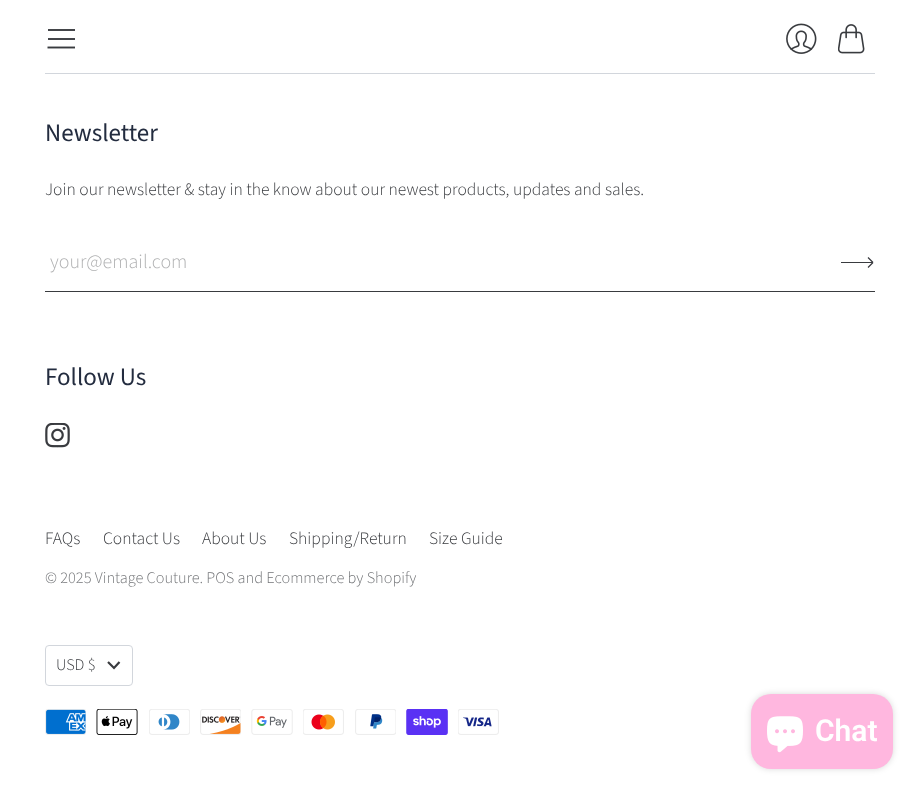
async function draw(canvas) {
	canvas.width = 919;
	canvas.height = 795;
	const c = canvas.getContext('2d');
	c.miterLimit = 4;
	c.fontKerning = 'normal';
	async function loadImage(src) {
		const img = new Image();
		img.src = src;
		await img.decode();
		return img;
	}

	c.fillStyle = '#fff';
	c.fillRect(0, 0, 919, 795);
	c.fillStyle = '#434549';
	c.fillRect(48, 29, 27, 2);
	c.fillRect(48, 38, 27, 2);
	c.beginPath();
	c.moveTo(47.5, 47.5);
	c.lineTo(75, 47.5);
	c.strokeStyle = '#393b3f';
	c.lineWidth = 1.9;
	c.stroke();
	c.drawImage(await loadImage('img1.png'), 786, 23, 31, 31);
	c.drawImage(await loadImage('img2.png'), 838, 24, 27, 30);
	c.fillStyle = '#d2d6dc';
	c.fillRect(45, 73, 830, 1);
	c.font = '25px Source Sans Pro';
	c.fillStyle = '#232c3f';
	c.fillText('Newsletter', 45, 141);
	c.font = '300 17.5px Source Sans Pro';
	c.fillStyle = '#393b3f';
	c.fillText('Join our newsletter & stay in the know about our newest products, updates and sales.', 45, 195);
	c.fillRect(45, 291, 830, 1);
	c.font = '300 20px Source Sans Pro';
	c.fillStyle = '#b0b1b2';
	c.fillText('your@email.com', 50, 268);
	c.beginPath();
	c.moveTo(841, 262.5);
	c.lineTo(873, 262.5);
	c.moveTo(873, 262.5);
	c.lineTo(868, 257.5);
	c.moveTo(873, 262.5);
	c.lineTo(868, 267.5);
	c.lineWidth = 1.2;
	c.stroke();
	c.font = '25px Source Sans Pro';
	c.fillStyle = '#232c3f';
	c.fillText('Follow Us', 45, 385);
	c.drawImage(await loadImage('img3.png'), 45, 423, 25, 25);
	c.font = '300 17.5px Source Sans Pro';
	c.fillStyle = '#393b3f';
	for (const [text, x, y] of [
		['FAQs', 45, 544],
		['Contact Us', 103, 544],
		['About Us', 202, 544],
		['Shipping/Return', 289, 544],
		['Size Guide', 429, 544],
	]) {
		c.fillText(text, x, y);
	}
	c.font = '300 16.25px Source Sans Pro';
	c.fillStyle = '#747679';
	c.fillText('© 2025 Vintage Couture. POS and Ecommerce by Shopify', 45, 583);
	c.beginPath();
	c.roundRect(45.5, 645.5, 87, 40, 3.5);
	c.strokeStyle = '#d2d6dc';
	c.lineWidth = 1;
	c.stroke();
	c.fillStyle = '#393b3f';
	c.fillText('USD $', 56, 670);
	c.beginPath();
	c.moveTo(108, 662);
	c.lineTo(114, 668);
	c.lineTo(119.5, 662);
	c.strokeStyle = '#393b3f';
	c.lineWidth = 2.2;
	c.stroke();
	c.drawImage(await loadImage('img4.png'), 45, 709, 41, 26);
	c.drawImage(await loadImage('img5.png'), 96, 709, 42, 26);
	c.drawImage(await loadImage('img6.png'), 149, 709, 41, 26);
	c.drawImage(await loadImage('img7.png'), 200, 709, 41, 26);
	c.drawImage(await loadImage('img8.png'), 251, 709, 42, 26);
	c.drawImage(await loadImage('img9.png'), 303, 709, 41, 26);
	c.drawImage(await loadImage('img10.png'), 355, 709, 41, 26);
	c.drawImage(await loadImage('img11.png'), 406, 709, 42, 26);
	c.drawImage(await loadImage('img12.png'), 458, 709, 41, 26);
	c.fillStyle = '#00000026';
	c.filter = 'blur(3px)';
	c.beginPath();
	c.roundRect(751, 694, 142, 75, 20);
	c.fill();
	c.filter = 'none';
	c.fillStyle = '#ffb7df';
	c.beginPath();
	c.roundRect(751, 694, 142, 75, 20);
	c.fill();
	c.drawImage(await loadImage('img13.png'), 767, 716, 36, 37);
	c.font = '600 30px Roboto';
	c.fillStyle = '#fff';
	c.fillText('Chat', 815, 741);
}

draw(document.querySelector('canvas'));
